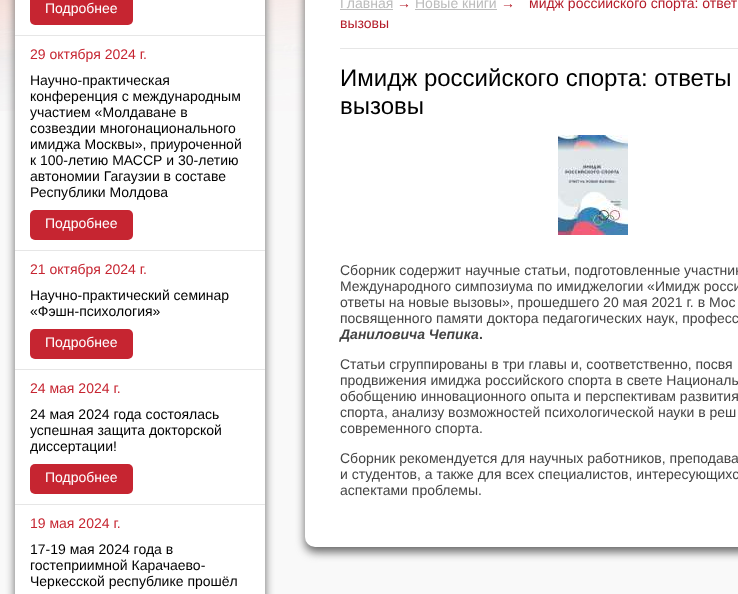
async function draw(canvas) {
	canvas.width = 738;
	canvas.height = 594;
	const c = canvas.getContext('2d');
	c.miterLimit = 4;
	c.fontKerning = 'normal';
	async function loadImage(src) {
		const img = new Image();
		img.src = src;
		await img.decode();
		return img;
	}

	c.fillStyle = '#f9f9f9';
	c.fillRect(0, 0, 738, 594);
	c.drawImage(await loadImage('img1.png'), 0, 0, 305, 111);
	c.fillStyle = '#666';
	c.filter = 'blur(5px)';
	c.beginPath();
	c.roundRect(15, -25, 250, 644, 10);
	c.fill();
	c.filter = 'none';
	c.fillStyle = '#fff';
	c.fillRect(15, 0, 250, 594);
	c.fillStyle = '#c62531';
	c.beginPath();
	c.roundRect(30, -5, 103, 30, 5);
	c.fill();
	c.font = '14px Liberation Sans';
	c.fillStyle = '#fff';
	c.fillText('Подробнее', 45, 13);
	c.fillStyle = '#e6e6e6';
	c.fillRect(15, 35, 250, 1);
	c.fillStyle = '#c62531';
	c.fillText('29 октября 2024 г.', 30, 59);
	c.fillStyle = '#000';
	for (const [text, x, y] of [
		['Научно-практическая', 30, 85],
		['конференция с международным', 30, 101],
		['участием «Молдаване в', 30, 117],
		['созвездии многонационального', 30, 133],
		['имиджа Москвы», приуроченной', 30, 149],
		['к 100-летию МАССР и 30-летию', 30, 165],
		['автономии Гагаузии в составе', 30, 181],
		['Республики Молдова', 30, 197],
	]) {
		c.fillText(text, x, y);
	}
	c.fillStyle = '#c62531';
	c.beginPath();
	c.roundRect(30, 210, 103, 30, 5);
	c.fill();
	c.fillStyle = '#fff';
	c.fillText('Подробнее', 45, 228);
	c.fillStyle = '#e6e6e6';
	c.fillRect(15, 250, 250, 1);
	c.fillStyle = '#c62531';
	c.fillText('21 октября 2024 г.', 30, 274);
	c.fillStyle = '#000';
	c.fillText('Научно-практический семинар', 30, 300);
	c.fillText('«Фэшн-психология»', 30, 316);
	c.fillStyle = '#c62531';
	c.beginPath();
	c.roundRect(30, 329, 103, 30, 5);
	c.fill();
	c.fillStyle = '#fff';
	c.fillText('Подробнее', 45, 347);
	c.fillStyle = '#e6e6e6';
	c.fillRect(15, 369, 250, 1);
	c.fillStyle = '#c62531';
	c.fillText('24 мая 2024 г.', 30, 393);
	c.fillStyle = '#000';
	for (const [text, x, y] of [
		['24 мая 2024 года состоялась', 30, 419],
		['успешная защита докторской', 30, 435],
		['диссертации!', 30, 451],
	]) {
		c.fillText(text, x, y);
	}
	c.fillStyle = '#c62531';
	c.beginPath();
	c.roundRect(30, 464, 103, 30, 5);
	c.fill();
	c.fillStyle = '#fff';
	c.fillText('Подробнее', 45, 482);
	c.fillStyle = '#e6e6e6';
	c.fillRect(15, 504, 250, 1);
	c.fillStyle = '#c62531';
	c.fillText('19 мая 2024 г.', 30, 528);
	c.fillStyle = '#000';
	for (const [text, x, y] of [
		['17-19 мая 2024 года в', 30, 554],
		['гостеприимной Карачаево-', 30, 570],
		['Черкесской республике прошёл', 30, 586],
	]) {
		c.fillText(text, x, y);
	}
	c.fillStyle = '#666';
	c.filter = 'blur(5px)';
	c.beginPath();
	c.roundRect(305, -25, 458, 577, 10);
	c.fill();
	c.filter = 'none';
	c.fillStyle = '#fff';
	c.beginPath();
	c.roundRect(305, -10, 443, 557, 10);
	c.fill();
	c.fillStyle = '#e6e6e6';
	c.fillRect(340, 48, 398, 1);
	c.fillStyle = '#bcbcbc';
	c.fillText('Главная', 340, 8);
	c.fillRect(340, 9, 53, 1);
	c.fillStyle = '#b41b28';
	c.fillText('→', 397, 8);
	c.fillStyle = '#bcbcbc';
	c.fillText('Новые книги', 415, 8);
	c.fillRect(415, 9, 82, 1);
	c.fillStyle = '#b41b28';
	for (const [text, x, y] of [
		['→', 501, 8],
		['мидж российского спорта: ответ', 529, 8],
		['вызовы', 340, 28],
	]) {
		c.fillText(text, x, y);
	}
	c.font = '24px Liberation Sans';
	c.fillStyle = '#000';
	c.fillText('Имидж российского спорта: ответы', 340, 86);
	c.fillText('вызовы', 340, 114);
	c.drawImage(await loadImage('img2.png'), 558, 135, 70, 100);
	c.font = '14px Liberation Sans';
	c.fillStyle = '#444';
	for (const [text, x, y] of [
		['Сборник содержит научные статьи, подготовленные участник', 340, 275],
		['Международного симпозиума по имиджелогии «Имидж росси', 340, 291],
		['ответы на новые вызовы», прошедшего 20 мая 2021 г. в Мос', 340, 307],
		['посвященного памяти доктора педагогических наук, професс', 340, 323],
	]) {
		c.fillText(text, x, y);
	}
	c.font = 'italic bold 14px Liberation Sans';
	c.fillText('Даниловича Чепика', 340, 339);
	c.font = 'bold 14px Liberation Sans';
	c.fillText('.', 479, 339);
	c.font = '14px Liberation Sans';
	for (const [text, x, y] of [
		['Статьи сгруппированы в три главы и, соответственно, посвя', 340, 369],
		['продвижения имиджа российского спорта в свете Националь', 340, 385],
		['обобщению инновационного опыта и перспективам развития', 340, 401],
		['спорта, анализу возможностей психологической науки в реш', 340, 417],
		['современного спорта.', 340, 433],
		['Сборник рекомендуется для научных работников, преподава', 340, 463],
		['и студентов, а также для всех специалистов, интересующихс', 340, 479],
		['аспектами проблемы.', 340, 495],
	]) {
		c.fillText(text, x, y);
	}
}

draw(document.querySelector('canvas'));
